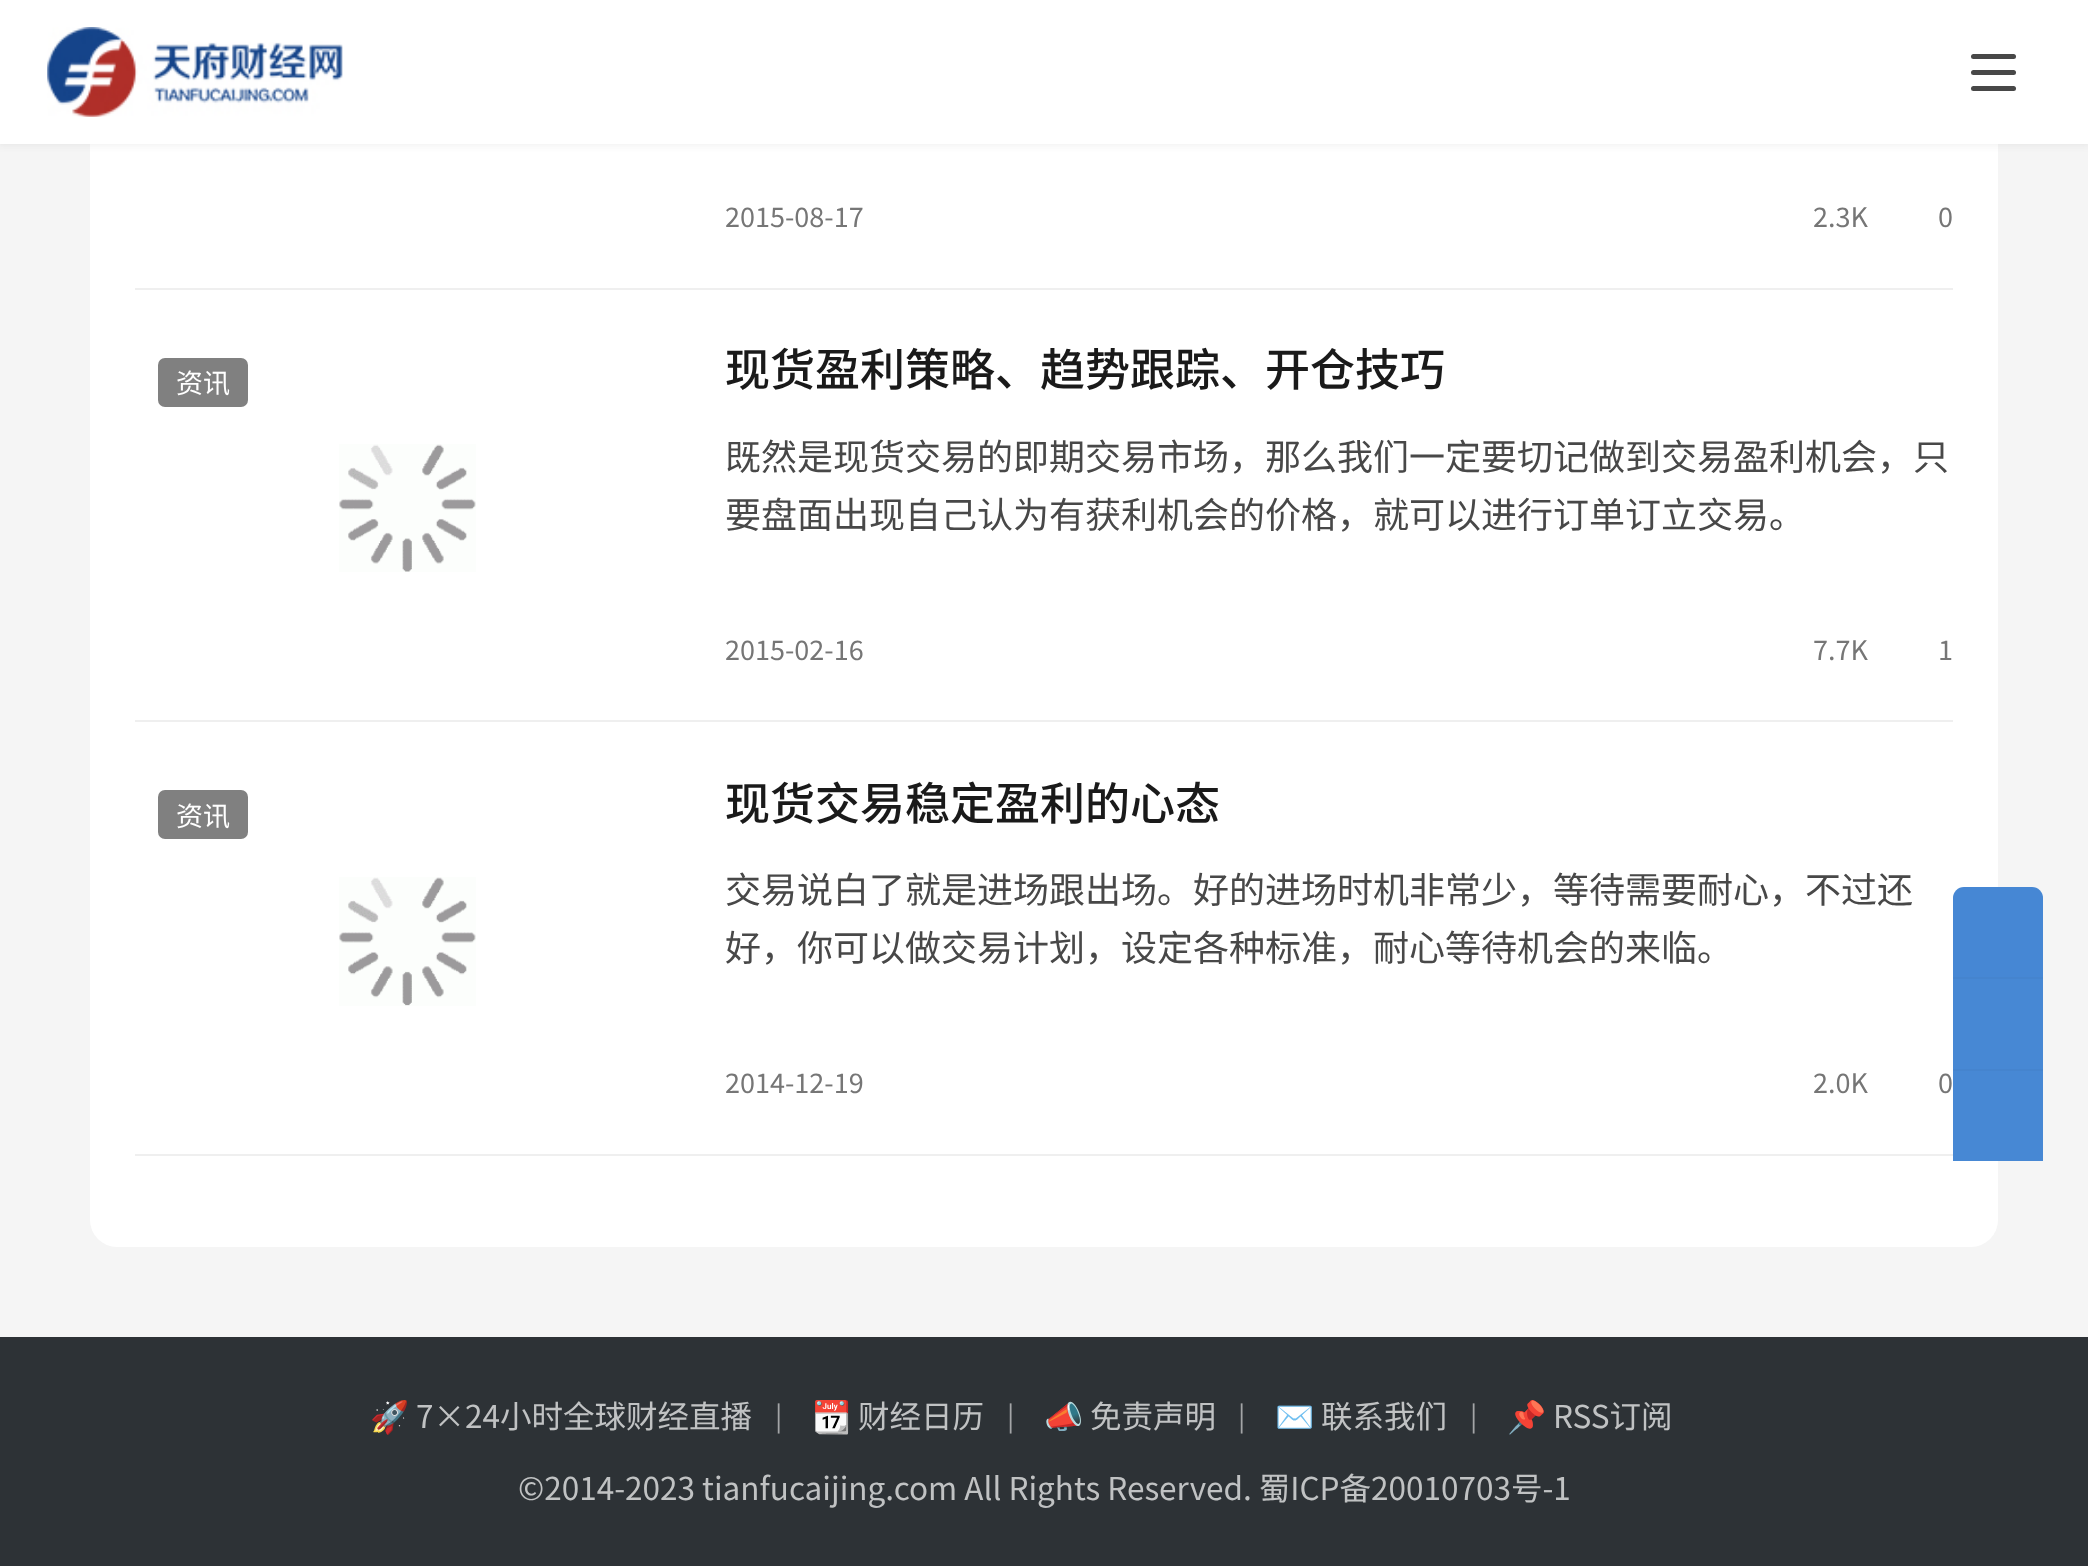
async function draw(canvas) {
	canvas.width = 2088;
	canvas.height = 1566;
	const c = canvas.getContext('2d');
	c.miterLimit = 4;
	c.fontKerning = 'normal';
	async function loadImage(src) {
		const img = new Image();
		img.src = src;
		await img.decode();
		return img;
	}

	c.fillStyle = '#f5f5f5';
	c.fillRect(0, 0, 2088, 1566);
	c.fillStyle = '#fff';
	c.beginPath();
	c.roundRect(90, -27, 1908, 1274, 27);
	c.fill();
	c.fillStyle = '#1a1a1a0f';
	c.filter = 'blur(3.5px)';
	c.beginPath();
	c.rect(-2, -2, 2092, 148);
	c.fill();
	c.filter = 'none';
	c.fillStyle = '#fff';
	c.fillRect(0, 0, 2088, 144);
	c.drawImage(await loadImage('img1.png'), 47, 27, 296, 90);
	c.fillStyle = '#484848';
	c.beginPath();
	c.roundRect(1971, 54, 45, 5, 2.5);
	c.fill();
	c.beginPath();
	c.roundRect(1971, 70, 45, 5, 2.5);
	c.fill();
	c.beginPath();
	c.roundRect(1971, 86, 45, 5, 2.5);
	c.fill();
	c.fillStyle = '#efefef';
	c.fillRect(135, 288, 1818, 2);
	c.font = '27px Noto Sans CJK SC';
	c.fillStyle = '#767676';
	for (const [text, x, y] of [
		['2015-08-17', 725, 227],
		['2.3K', 1813, 227],
		['0', 1938, 227],
	]) {
		c.fillText(text, x, y);
	}
	c.fillStyle = '#efefef';
	c.fillRect(135, 720, 1818, 2);
	c.fillStyle = '#808080';
	c.beginPath();
	c.roundRect(158, 358, 90, 49, 7);
	c.fill();
	c.fillStyle = '#fff';
	c.fillText('资讯', 176, 393);
	c.drawImage(await loadImage('img2.png'), 339, 444, 137, 128);
	c.font = '500 45px Noto Sans CJK SC';
	c.fillStyle = '#1a1a1a';
	c.fillText('现货盈利策略、趋势跟踪、开仓技巧', 725, 386);
	c.font = '36px Noto Sans CJK SC';
	c.fillStyle = '#484848';
	c.fillText('既然是现货交易的即期交易市场，那么我们一定要切记做到交易盈利机会，只', 725, 470);
	c.fillText('要盘面出现自己认为有获利机会的价格，就可以进行订单订立交易。', 725, 528);
	c.font = '27px Noto Sans CJK SC';
	c.fillStyle = '#767676';
	for (const [text, x, y] of [
		['2015-02-16', 725, 660],
		['7.7K', 1813, 660],
		['1', 1938, 660],
	]) {
		c.fillText(text, x, y);
	}
	c.fillStyle = '#efefef';
	c.fillRect(135, 1154, 1818, 2);
	c.fillStyle = '#808080';
	c.beginPath();
	c.roundRect(158, 790, 90, 49, 7);
	c.fill();
	c.fillStyle = '#fff';
	c.fillText('资讯', 176, 826);
	c.drawImage(await loadImage('img3.png'), 339, 877, 137, 129);
	c.font = '500 45px Noto Sans CJK SC';
	c.fillStyle = '#1a1a1a';
	c.fillText('现货交易稳定盈利的心态', 725, 820);
	c.font = '36px Noto Sans CJK SC';
	c.fillStyle = '#484848';
	c.fillText('交易说白了就是进场跟出场。好的进场时机非常少，等待需要耐心，不过还', 725, 903);
	c.fillText('好，你可以做交易计划，设定各种标准，耐心等待机会的来临。', 725, 961);
	c.font = '27px Noto Sans CJK SC';
	c.fillStyle = '#767676';
	for (const [text, x, y] of [
		['2014-12-19', 725, 1093],
		['2.0K', 1813, 1093],
		['0', 1938, 1093],
	]) {
		c.fillText(text, x, y);
	}
	c.fillStyle = '#4a90e2';
	c.beginPath();
	c.roundRect(1953, 887, 90, 90, [11, 11, 0, 0]);
	c.fill();
	c.fillStyle = '#1a1a1a12';
	c.beginPath();
	c.roundRect(1953, 887, 90, 90, [11, 11, 0, 0]);
	c.fill();
	for (const [x, y, w, h, color] of [
		[1953, 977, 90, 2, '#4584ce'],
		[1953, 979, 90, 90, '#4788d4'],
		[1953, 1069, 90, 2, '#4584ce'],
		[1953, 1071, 90, 90, '#4788d4'],
		[0, 1337, 2088, 229, '#2d3236'],
	]) {
		c.fillStyle = color;
		c.fillRect(x, y, w, h);
	}
	c.font = '31.5px Noto Color Emoji';
	c.fillStyle = '#c0c2c3';
	c.fillText('🚀', 370, 1428);
	c.font = '31.5px Noto Sans CJK SC';
	c.fillText('7×24小时全球财经直播', 416, 1428);
	c.font = '27px Noto Sans CJK SC';
	c.fillStyle = '#a3a5a7';
	c.fillText('|', 775, 1426);
	c.font = '31.5px Noto Color Emoji';
	c.fillStyle = '#c0c2c3';
	c.fillText('📆', 812, 1428);
	c.font = '31.5px Noto Sans CJK SC';
	c.fillText('财经日历', 858, 1428);
	c.font = '27px Noto Sans CJK SC';
	c.fillStyle = '#a3a5a7';
	c.fillText('|', 1007, 1426);
	c.font = '31.5px Noto Color Emoji';
	c.fillStyle = '#c0c2c3';
	c.fillText('📣', 1044, 1428);
	c.font = '31.5px Noto Sans CJK SC';
	c.fillText('免责声明', 1090, 1428);
	c.font = '27px Noto Sans CJK SC';
	c.fillStyle = '#a3a5a7';
	c.fillText('|', 1238, 1426);
	c.font = '31.5px Noto Color Emoji';
	c.fillStyle = '#c0c2c3';
	c.fillText('✉️', 1275, 1428);
	c.font = '31.5px Noto Sans CJK SC';
	c.fillText('联系我们', 1321, 1428);
	c.font = '27px Noto Sans CJK SC';
	c.fillStyle = '#a3a5a7';
	c.fillText('|', 1470, 1426);
	c.font = '31.5px Noto Color Emoji';
	c.fillStyle = '#c0c2c3';
	c.fillText('📌', 1507, 1428);
	c.font = '31.5px Noto Sans CJK SC';
	c.fillText('RSS订阅', 1553, 1428);
	c.fillText('©2014-2023 tianfucaijing.com All Rights Reserved. 蜀ICP备20010703号-1', 518, 1500);
}

draw(document.querySelector('canvas'));
